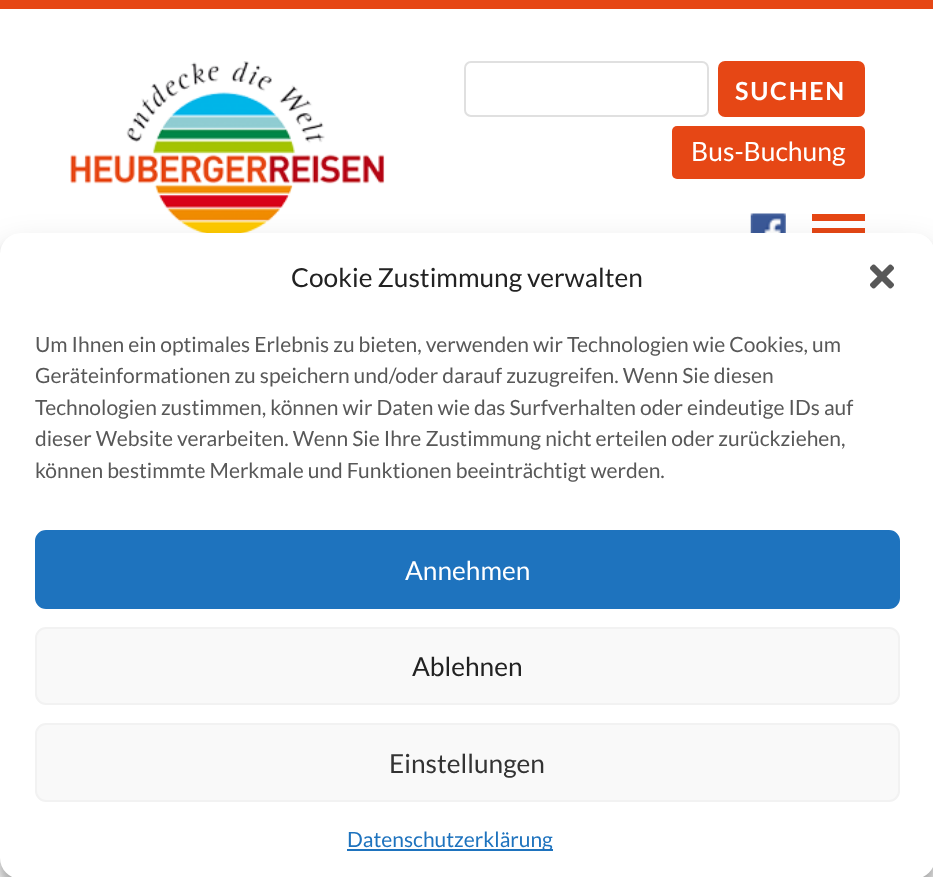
async function draw(canvas) {
	canvas.width = 933;
	canvas.height = 877;
	const c = canvas.getContext('2d');
	c.miterLimit = 4;
	c.fontKerning = 'normal';
	async function loadImage(src) {
		const img = new Image();
		img.src = src;
		await img.decode();
		return img;
	}

	c.fillStyle = '#fff';
	c.fillRect(0, 0, 933, 877);
	c.fillStyle = '#e64715';
	c.fillRect(0, 0, 933, 9);
	c.drawImage(await loadImage('img1.png'), 70, 61, 315, 172);
	c.beginPath();
	c.roundRect(465, 62, 243, 54, 6);
	c.strokeStyle = '#e0e0e0';
	c.lineWidth = 2;
	c.stroke();
	c.beginPath();
	c.roundRect(718, 61, 147, 56, 7);
	c.fill();
	c.letterSpacing = '1.75px';
	c.font = 'bold 25px Lato';
	c.fillStyle = '#fff';
	c.fillText('SUCHEN', 735, 100);
	c.fillStyle = '#e64715';
	c.beginPath();
	c.roundRect(672, 126, 193, 53, 5);
	c.fill();
	c.letterSpacing = '0px';
	c.font = '26.5px Lato';
	c.fillStyle = '#fff';
	c.fillText('Bus-Buchung', 691, 161);
	c.drawImage(await loadImage('img2.png'), 750, 213, 36, 20);
	c.fillStyle = '#e64715';
	c.fillRect(812, 214, 53, 7);
	c.fillRect(812, 228, 53, 5);
	c.fillStyle = '#0000003b';
	c.filter = 'blur(5px)';
	c.beginPath();
	c.roundRect(0, 243, 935, 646, 21);
	c.fill();
	c.filter = 'none';
	c.fillStyle = '#00000030';
	c.filter = 'blur(17.5px)';
	c.beginPath();
	c.roundRect(0, 250, 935, 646, 21);
	c.fill();
	c.filter = 'none';
	c.fillStyle = '#fff';
	c.beginPath();
	c.roundRect(0, 233, 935, 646, 21);
	c.fill();
	c.font = '26.25px Lato';
	c.fillStyle = '#222';
	c.fillText('Cookie Zustimmung verwalten', 291, 287);
	c.drawImage(await loadImage('img3.png'), 870, 264, 24, 25);
	c.font = '21px Lato';
	c.fillStyle = '#585858';
	for (const [text, x, y] of [
		['Um Ihnen ein optimales Erlebnis zu bieten, verwenden wir Technologien wie Cookies, um', 35, 352],
		['Geräteinformationen zu speichern und/oder darauf zuzugreifen. Wenn Sie diesen', 35, 383],
		['Technologien zustimmen, können wir Daten wie das Surfverhalten oder eindeutige IDs auf', 35, 415],
		['dieser Website verarbeiten. Wenn Sie Ihre Zustimmung nicht erteilen oder zurückziehen,', 35, 446],
		['können bestimmte Merkmale und Funktionen beeinträchtigt werden.', 35, 478],
	]) {
		c.fillText(text, x, y);
	}
	c.fillStyle = '#1e73be';
	c.beginPath();
	c.roundRect(36, 531, 863, 77, 10);
	c.fill();
	c.strokeStyle = '#1e73be';
	c.stroke();
	c.font = '26.25px Lato';
	c.fillStyle = '#fff';
	c.fillText('Annehmen', 405, 580);
	c.fillStyle = '#f9f9f9';
	c.beginPath();
	c.roundRect(36, 628, 863, 76, 10);
	c.fill();
	c.strokeStyle = '#f2f2f2';
	c.stroke();
	c.fillStyle = '#222';
	c.fillText('Ablehnen', 412, 676);
	c.fillStyle = '#f9f9f9';
	c.beginPath();
	c.roundRect(36, 724, 863, 77, 10);
	c.fill();
	c.stroke();
	c.fillStyle = '#333';
	c.fillText('Einstellungen', 389, 773);
	c.fillStyle = '#1e73be';
	c.fillRect(347, 849, 206, 2);
	c.font = '21px Lato';
	c.fillText('Datenschutzerklärung', 347, 847);
}

draw(document.querySelector('canvas'));
